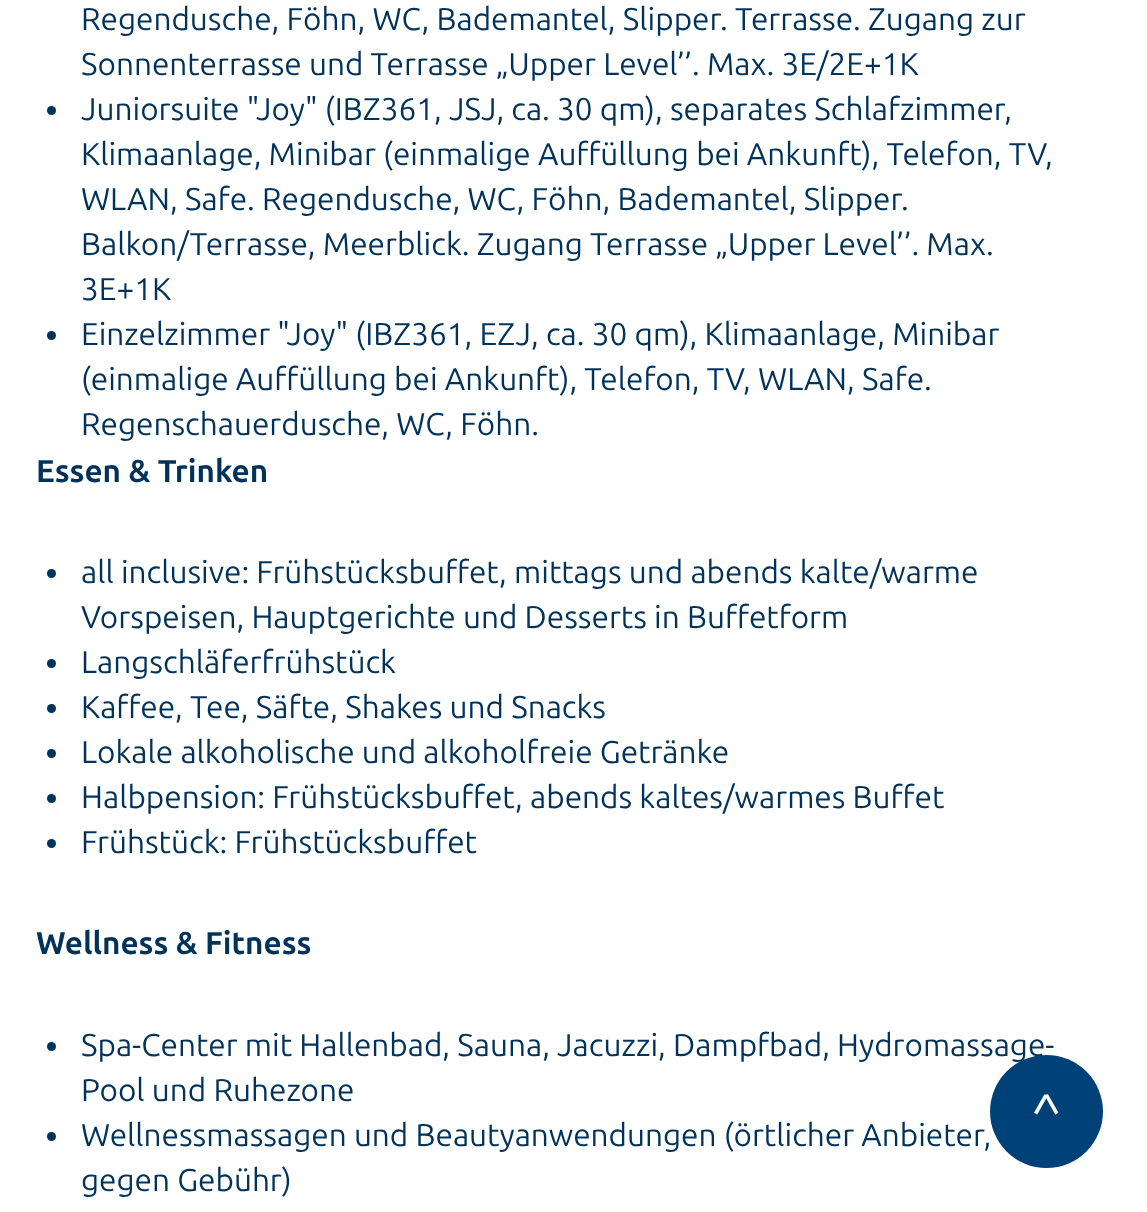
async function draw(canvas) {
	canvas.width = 1147;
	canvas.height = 1212;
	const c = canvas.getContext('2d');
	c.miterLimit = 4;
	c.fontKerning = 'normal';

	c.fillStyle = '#fff';
	c.fillRect(0, 0, 1147, 1212);
	c.font = '31.5px Ubuntu';
	c.fillStyle = '#013259';
	c.fillText('Regendusche, Föhn, WC, Bademantel, Slipper. Terrasse. Zugang zur', 81, 30);
	c.fillText('Sonnenterrasse und Terrasse „Upper Level’’. Max. 3E/2E+1K', 81, 75);
	c.beginPath();
	c.arc(51.5, 110.5, 4.5, 0, 2 * Math.PI);
	c.fill();
	for (const [text, x, y] of [
		['Juniorsuite "Joy" (IBZ361, JSJ, ca. 30 qm), separates Schlafzimmer,', 81, 120],
		['Klimaanlage, Minibar (einmalige Auffüllung bei Ankunft), Telefon, TV,', 81, 165],
		['WLAN, Safe. Regendusche, WC, Föhn, Bademantel, Slipper.', 81, 210],
		['Balkon/Terrasse, Meerblick. Zugang Terrasse „Upper Level’’. Max.', 81, 255],
		['3E+1K', 81, 300],
	]) {
		c.fillText(text, x, y);
	}
	c.beginPath();
	c.arc(51.5, 335.5, 4.5, 0, 2 * Math.PI);
	c.fill();
	for (const [text, x, y] of [
		['Einzelzimmer "Joy" (IBZ361, EZJ, ca. 30 qm), Klimaanlage, Minibar', 81, 345],
		['(einmalige Auffüllung bei Ankunft), Telefon, TV, WLAN, Safe.', 81, 390],
		['Regenschauerdusche, WC, Föhn.', 81, 435],
	]) {
		c.fillText(text, x, y);
	}
	c.font = 'bold 31.5px Ubuntu';
	c.fillText('Essen & Trinken', 36, 482);
	c.beginPath();
	c.arc(51.5, 573.5, 4.5, 0, 2 * Math.PI);
	c.fill();
	c.font = '31.5px Ubuntu';
	c.fillText('all inclusive: Frühstücksbuffet, mittags und abends kalte/warme', 81, 583);
	c.fillText('Vorspeisen, Hauptgerichte und Desserts in Buffetform', 81, 628);
	c.beginPath();
	c.arc(51.5, 663.5, 4.5, 0, 2 * Math.PI);
	c.fill();
	c.fillText('Langschläferfrühstück', 81, 673);
	c.beginPath();
	c.arc(51.5, 708.5, 4.5, 0, 2 * Math.PI);
	c.fill();
	c.fillText('Kaffee, Tee, Säfte, Shakes und Snacks', 81, 718);
	c.beginPath();
	c.arc(51.5, 753.5, 4.5, 0, 2 * Math.PI);
	c.fill();
	c.fillText('Lokale alkoholische und alkoholfreie Getränke', 81, 763);
	c.beginPath();
	c.arc(51.5, 798.5, 4.5, 0, 2 * Math.PI);
	c.fill();
	c.fillText('Halbpension: Frühstücksbuffet, abends kaltes/warmes Buffet', 81, 808);
	c.beginPath();
	c.arc(51.5, 843.5, 4.5, 0, 2 * Math.PI);
	c.fill();
	c.fillText('Frühstück: Frühstücksbuffet', 81, 853);
	c.font = 'bold 31.5px Ubuntu';
	c.fillText('Wellness & Fitness', 36, 954);
	c.beginPath();
	c.arc(51.5, 1046.5, 4.5, 0, 2 * Math.PI);
	c.fill();
	c.font = '31.5px Ubuntu';
	c.fillText('Spa-Center mit Hallenbad, Sauna, Jacuzzi, Dampfbad, Hydromassage-', 81, 1056);
	c.fillText('Pool und Ruhezone', 81, 1101);
	c.beginPath();
	c.arc(51.5, 1136.5, 4.5, 0, 2 * Math.PI);
	c.fill();
	c.fillText('Wellnessmassagen und Beautyanwendungen (örtlicher Anbieter,', 81, 1146);
	c.fillText('gegen Gebühr)', 81, 1191);
	c.fillStyle = '#004277';
	c.beginPath();
	c.arc(1046.5, 1111.5, 56.5, 0, 2 * Math.PI);
	c.fill();
	c.font = '54px Ubuntu';
	c.fillStyle = '#fff';
	c.fillText('^', 1031, 1132);
}

draw(document.querySelector('canvas'));
